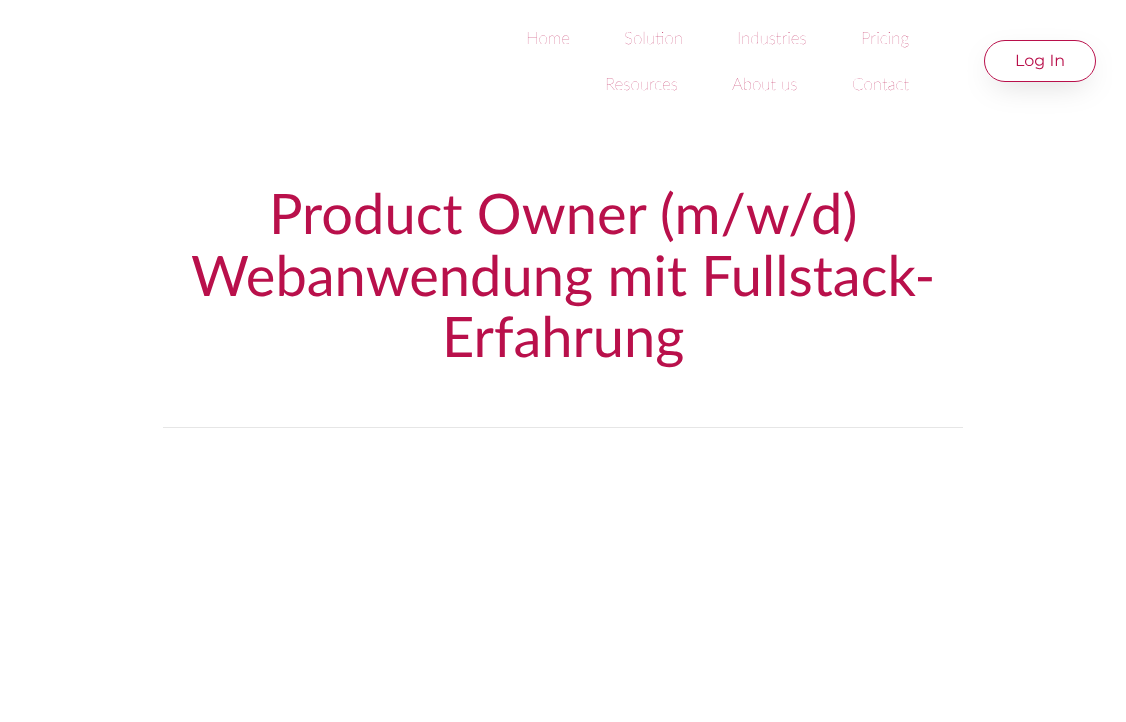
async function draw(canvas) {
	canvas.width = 1126;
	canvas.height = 722;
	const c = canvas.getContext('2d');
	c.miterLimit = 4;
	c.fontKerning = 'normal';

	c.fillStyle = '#fff';
	c.fillRect(0, 0, 1126, 722);
	c.font = '200 17px Lato';
	c.fillStyle = '#b9104b';
	for (const [text, x, y] of [
		['Home', 526, 44],
		['Solution', 624, 44],
		['Industries', 737, 44],
		['Pricing', 861, 44],
		['Resources', 605, 90],
		['About us', 732, 90],
		['Contact', 852, 90],
	]) {
		c.fillText(text, x, y);
	}
	c.save();
	c.beginPath();
	c.moveTo(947, 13);
	c.lineTo(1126, 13);
	c.lineTo(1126, 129);
	c.lineTo(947, 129);
	c.closePath();
	c.moveTo(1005, 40);
	c.lineTo(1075, 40);
	c.bezierCurveTo(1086.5, 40, 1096, 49.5, 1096, 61);
	c.bezierCurveTo(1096, 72.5, 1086.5, 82, 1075, 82);
	c.lineTo(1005, 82);
	c.bezierCurveTo(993.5, 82, 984, 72.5, 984, 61);
	c.bezierCurveTo(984, 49.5, 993.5, 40, 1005, 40);
	c.closePath();
	c.clip('evenodd');
	c.fillStyle = '#00000029';
	c.filter = 'blur(15px)';
	c.beginPath();
	c.roundRect(993, 59, 94, 24, 12);
	c.fill();
	c.filter = 'none';
	c.restore();
	c.beginPath();
	c.roundRect(984.5, 40.5, 111, 41, 20.5);
	c.strokeStyle = '#b9104b';
	c.stroke();
	c.font = '16px Montserrat';
	c.fillText('Log In', 1015, 66);
	c.fillStyle = '#e6e6e6';
	c.fillRect(163, 427, 800, 1);
	c.font = '56px Lato';
	c.fillStyle = '#b9104b';
	for (const [text, x, y] of [
		['Product Owner (m/w/d)', 269, 234],
		['Webanwendung mit Fullstack-', 191, 296],
		['Erfahrung', 442, 357],
	]) {
		c.fillText(text, x, y);
	}
}

draw(document.querySelector('canvas'));
